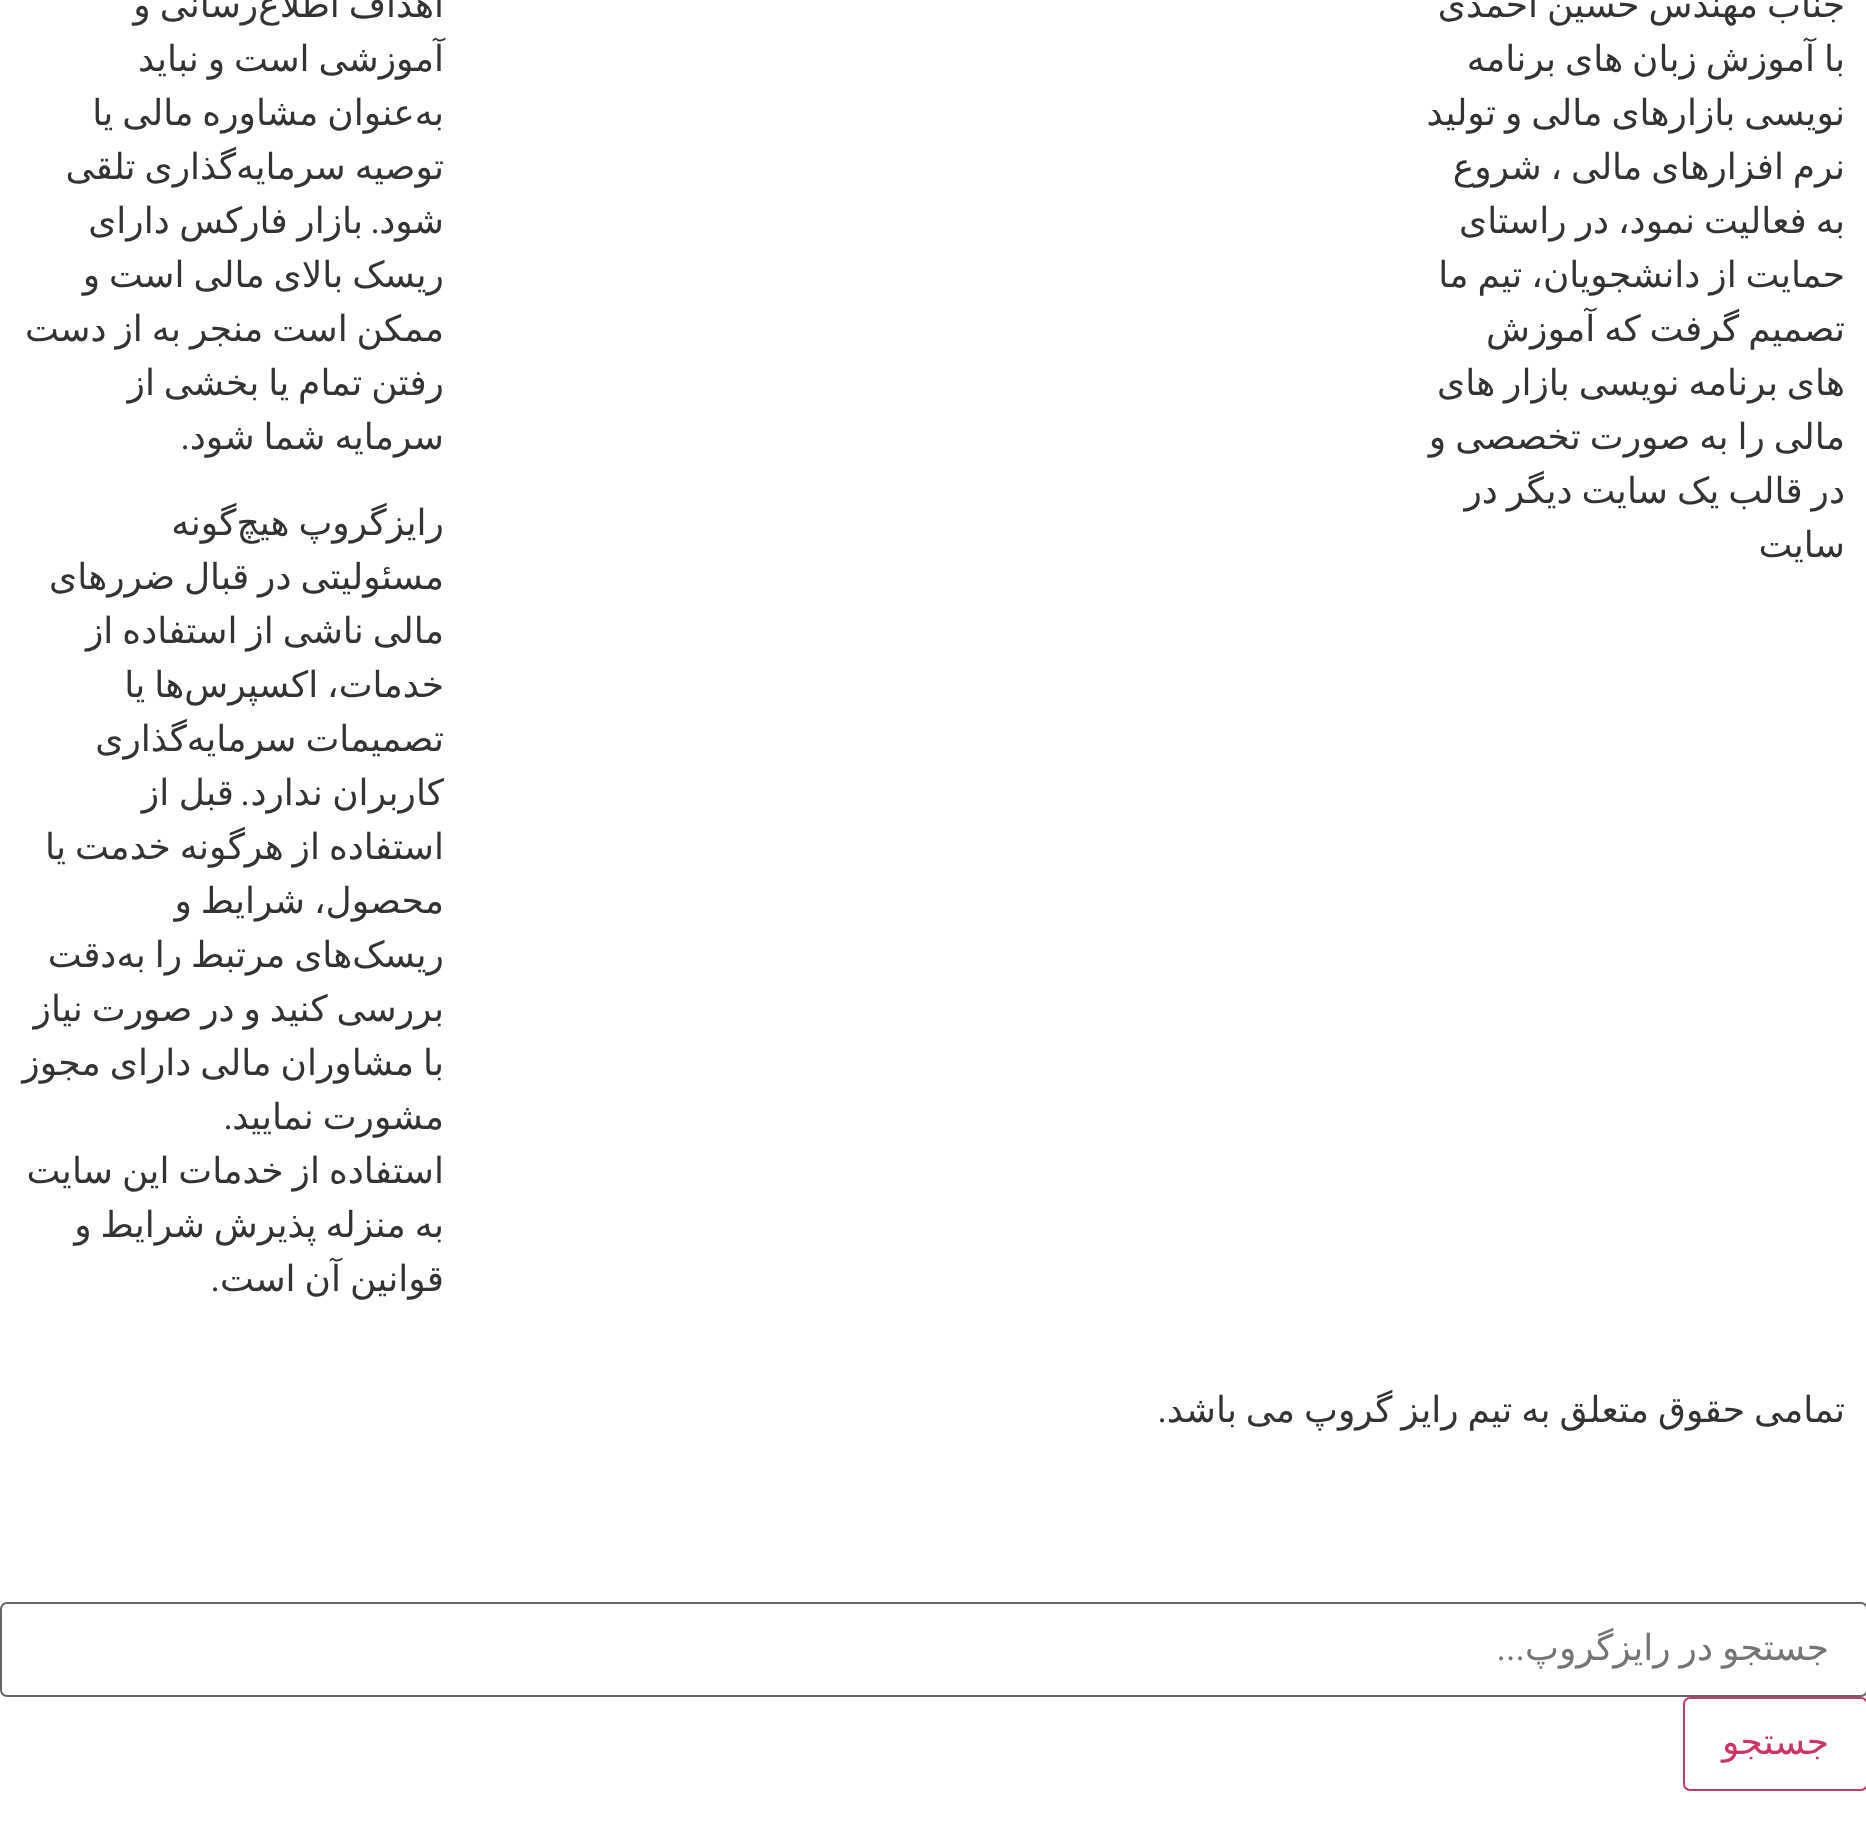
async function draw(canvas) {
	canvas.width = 1866;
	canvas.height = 1845;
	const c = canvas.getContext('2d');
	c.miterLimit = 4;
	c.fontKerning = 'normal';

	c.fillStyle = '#fff';
	c.fillRect(0, 0, 1866, 1845);
	c.wordSpacing = '-2.5px';
	c.direction = 'rtl';
	c.font = '36px DejaVu Sans';
	c.fillStyle = '#333';
	for (const [text, x, y] of [
		['جناب مهندس حسین احمدی', 1845, 17],
		['با آموزش زبان های برنامه', 1845, 71],
		['نویسی بازارهای مالی و تولید', 1845, 125],
		['نرم افزارهای مالی ، شروع', 1845, 179],
		['به فعالیت نمود، در راستای', 1845, 233],
		['حمایت از دانشجویان، تیم ما', 1845, 287],
		['تصمیم گرفت که آموزش', 1845, 341],
		['های برنامه نویسی بازار های', 1845, 395],
		['مالی را به صورت تخصصی و', 1845, 449],
		['در قالب یک سایت دیگر در', 1845, 503],
	]) {
		c.fillText(text, x, y);
	}
	c.wordSpacing = '0px';
	c.fillText('سایت', 1845, 557);
	c.wordSpacing = '-2.5px';
	for (const [text, x, y] of [
		['اهداف اطلاع‌رسانی و', 444, 17],
		['آموزشی است و نباید', 444, 71],
		['به‌عنوان مشاوره مالی یا', 444, 125],
		['توصیه سرمایه‌گذاری تلقی', 444, 179],
	]) {
		c.fillText(text, x, y);
	}
	c.wordSpacing = '0px';
	c.fillText('شود', 444, 233);
	c.font = '36px Roboto';
	c.fillText('.', 380, 233);
	c.wordSpacing = '-2px';
	c.font = '36px DejaVu Sans';
	c.fillText('بازار فارکس دارای', 363, 233);
	c.wordSpacing = '-2.5px';
	for (const [text, x, y] of [
		['ریسک بالای مالی است و', 444, 287],
		['ممکن است منجر به از دست', 444, 341],
		['رفتن تمام یا بخشی از', 444, 395],
		['سرمایه شما شود', 444, 449],
	]) {
		c.fillText(text, x, y);
	}
	c.wordSpacing = '0px';
	c.font = '36px Roboto';
	c.fillText('.', 190, 449);
	c.wordSpacing = '-2.5px';
	c.font = '36px DejaVu Sans';
	for (const [text, x, y] of [
		['رایزگروپ هیچ‌گونه', 444, 535],
		['مسئولیتی در قبال ضررهای', 444, 589],
		['مالی ناشی از استفاده از', 444, 643],
		['خدمات، اکسپرس‌ها یا', 444, 697],
		['تصمیمات سرمایه‌گذاری', 444, 751],
	]) {
		c.fillText(text, x, y);
	}
	c.wordSpacing = '-2px';
	c.fillText('کاربران ندارد', 444, 805);
	c.wordSpacing = '0px';
	c.font = '36px Roboto';
	c.fillText('.', 250, 805);
	c.wordSpacing = '-2px';
	c.font = '36px DejaVu Sans';
	c.fillText('قبل از', 234, 805);
	c.wordSpacing = '-2.5px';
	for (const [text, x, y] of [
		['استفاده از هرگونه خدمت یا', 444, 859],
		['محصول، شرایط و', 444, 913],
		['ریسک‌های مرتبط را به‌دقت', 444, 967],
		['بررسی کنید و در صورت نیاز', 444, 1021],
		['با مشاوران مالی دارای مجوز', 444, 1075],
		['مشورت نمایید', 444, 1129],
	]) {
		c.fillText(text, x, y);
	}
	c.wordSpacing = '0px';
	c.font = '36px Roboto';
	c.fillText('.', 233, 1129);
	c.wordSpacing = '-2.5px';
	c.font = '36px DejaVu Sans';
	for (const [text, x, y] of [
		['استفاده از خدمات این سایت', 444, 1183],
		['به منزله پذیرش شرایط و', 444, 1237],
		['قوانین آن است', 444, 1291],
	]) {
		c.fillText(text, x, y);
	}
	c.wordSpacing = '0px';
	c.font = '36px Roboto';
	c.fillText('.', 220, 1291);
	c.wordSpacing = '-2.5px';
	c.font = '36px DejaVu Sans';
	c.fillText('تمامی حقوق متعلق به تیم رایز گروپ می باشد', 1845, 1422);
	c.wordSpacing = '0px';
	c.font = '36px Roboto';
	c.fillText('.', 1167, 1422);
	c.beginPath();
	c.roundRect(1, 1603, 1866, 93, 6);
	c.strokeStyle = '#666';
	c.lineWidth = 2;
	c.stroke();
	c.wordSpacing = '-2.5px';
	c.font = '36px DejaVu Sans';
	c.fillStyle = '#757575';
	c.fillText('جستجو در رایزگروپ', 1829, 1660);
	c.wordSpacing = '0px';
	c.font = '36px Roboto';
	c.fillText('...', 1525, 1660);
	c.beginPath();
	c.roundRect(1684, 1698, 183, 92, 6);
	c.strokeStyle = '#c36';
	c.stroke();
	c.font = '36px DejaVu Sans';
	c.fillStyle = '#c36';
	c.fillText('جستجو', 1829, 1754);
}

draw(document.querySelector('canvas'));
